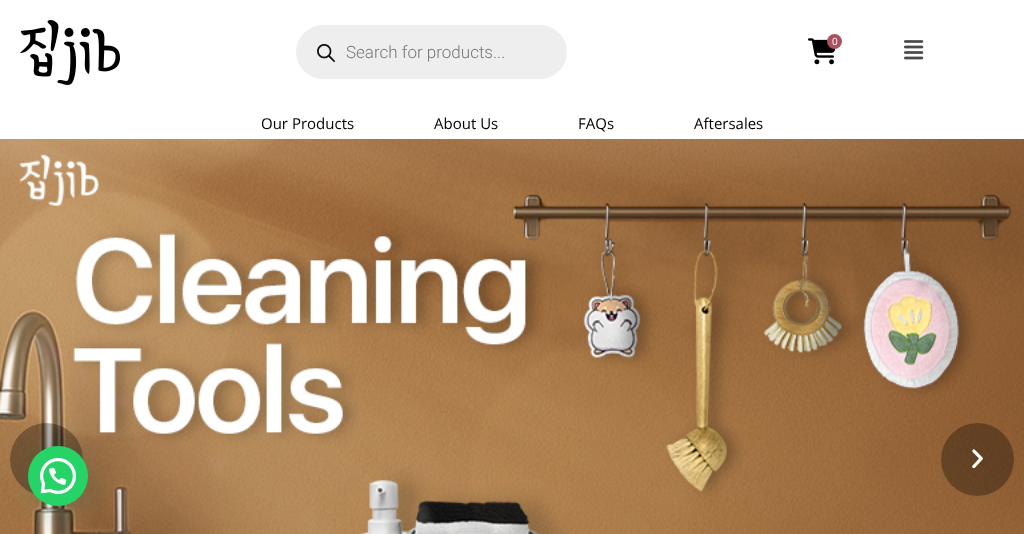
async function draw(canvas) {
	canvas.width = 1024;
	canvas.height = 534;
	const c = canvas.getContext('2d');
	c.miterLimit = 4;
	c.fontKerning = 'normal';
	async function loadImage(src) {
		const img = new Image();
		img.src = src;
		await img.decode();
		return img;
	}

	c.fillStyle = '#fff';
	c.fillRect(0, 0, 1024, 534);
	c.drawImage(await loadImage('img1.png'), 20, 20, 100, 65);
	c.drawImage(await loadImage('img2.png'), 808, 38, 28, 27);
	c.fillStyle = '#ac5160';
	c.beginPath();
	c.arc(834.5, 41.5, 7.5, 0, 2 * Math.PI);
	c.fill();
	c.font = '10px Open Sans';
	c.fillStyle = '#fff';
	c.fillText('0', 832, 45);
	c.drawImage(await loadImage('img3.png'), 904, 40, 20, 20);
	c.fillStyle = '#eee';
	c.beginPath();
	c.roundRect(296, 25, 271, 54, 27);
	c.fill();
	c.drawImage(await loadImage('img4.png'), 317, 44, 18, 18);
	c.font = '300 17px Roboto';
	c.fillStyle = '#777';
	c.fillText('Search for products...', 346, 58);
	c.font = '15px Open Sans';
	c.fillStyle = '#000';
	for (const [text, x, y] of [
		['Our Products', 261, 129],
		['About Us', 434, 129],
		['FAQs', 578, 129],
		['Aftersales', 694, 129],
	]) {
		c.fillText(text, x, y);
	}
	c.drawImage(await loadImage('img5.png'), 0, 139, 1024, 395);
	c.fillStyle = '#0000004f';
	c.beginPath();
	c.arc(46.5, 459.5, 36.5, 0, 2 * Math.PI);
	c.fill();
	c.beginPath();
	c.arc(977.5, 459.5, 36.5, 0, 2 * Math.PI);
	c.fill();
	c.drawImage(await loadImage('img6.png'), 972, 449, 11, 20);
	c.fillStyle = '#075e543d';
	c.filter = 'blur(12px)';
	c.beginPath();
	c.roundRect(29, 452, 60, 60, 30);
	c.fill();
	c.filter = 'none';
	c.fillStyle = '#25d366';
	c.beginPath();
	c.arc(58, 476, 30, 0, 2 * Math.PI);
	c.fill();
	c.drawImage(await loadImage('img7.png'), 40, 458, 36, 36);
}

draw(document.querySelector('canvas'));
